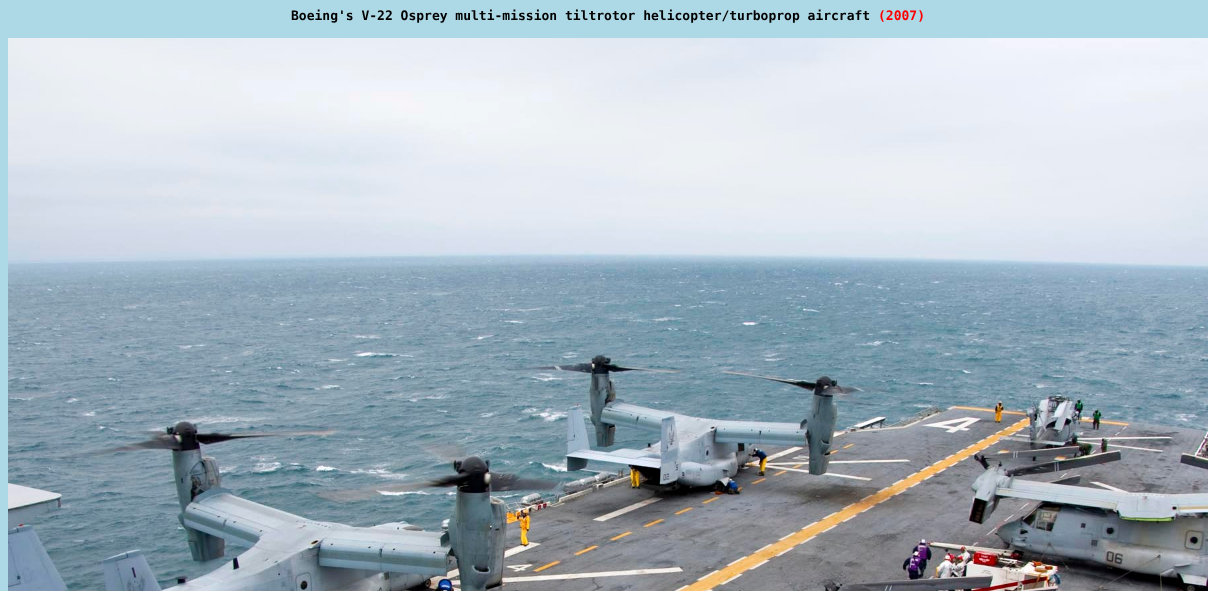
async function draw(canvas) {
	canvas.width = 1208;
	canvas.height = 591;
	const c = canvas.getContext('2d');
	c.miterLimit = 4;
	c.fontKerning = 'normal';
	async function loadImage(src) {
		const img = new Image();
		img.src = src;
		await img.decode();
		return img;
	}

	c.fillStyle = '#add8e6';
	c.fillRect(0, 0, 1208, 591);
	c.font = 'bold 13px DejaVu Sans Mono';
	c.fillStyle = '#000';
	c.fillText('Boeing\'s V-22 Osprey multi-mission tiltrotor helicopter/turboprop aircraft', 291, 20);
	c.fillStyle = '#f00';
	c.fillText('(2007)', 878, 20);
	c.drawImage(await loadImage('img1.png'), 8, 38, 1200, 553);
}

draw(document.querySelector('canvas'));
